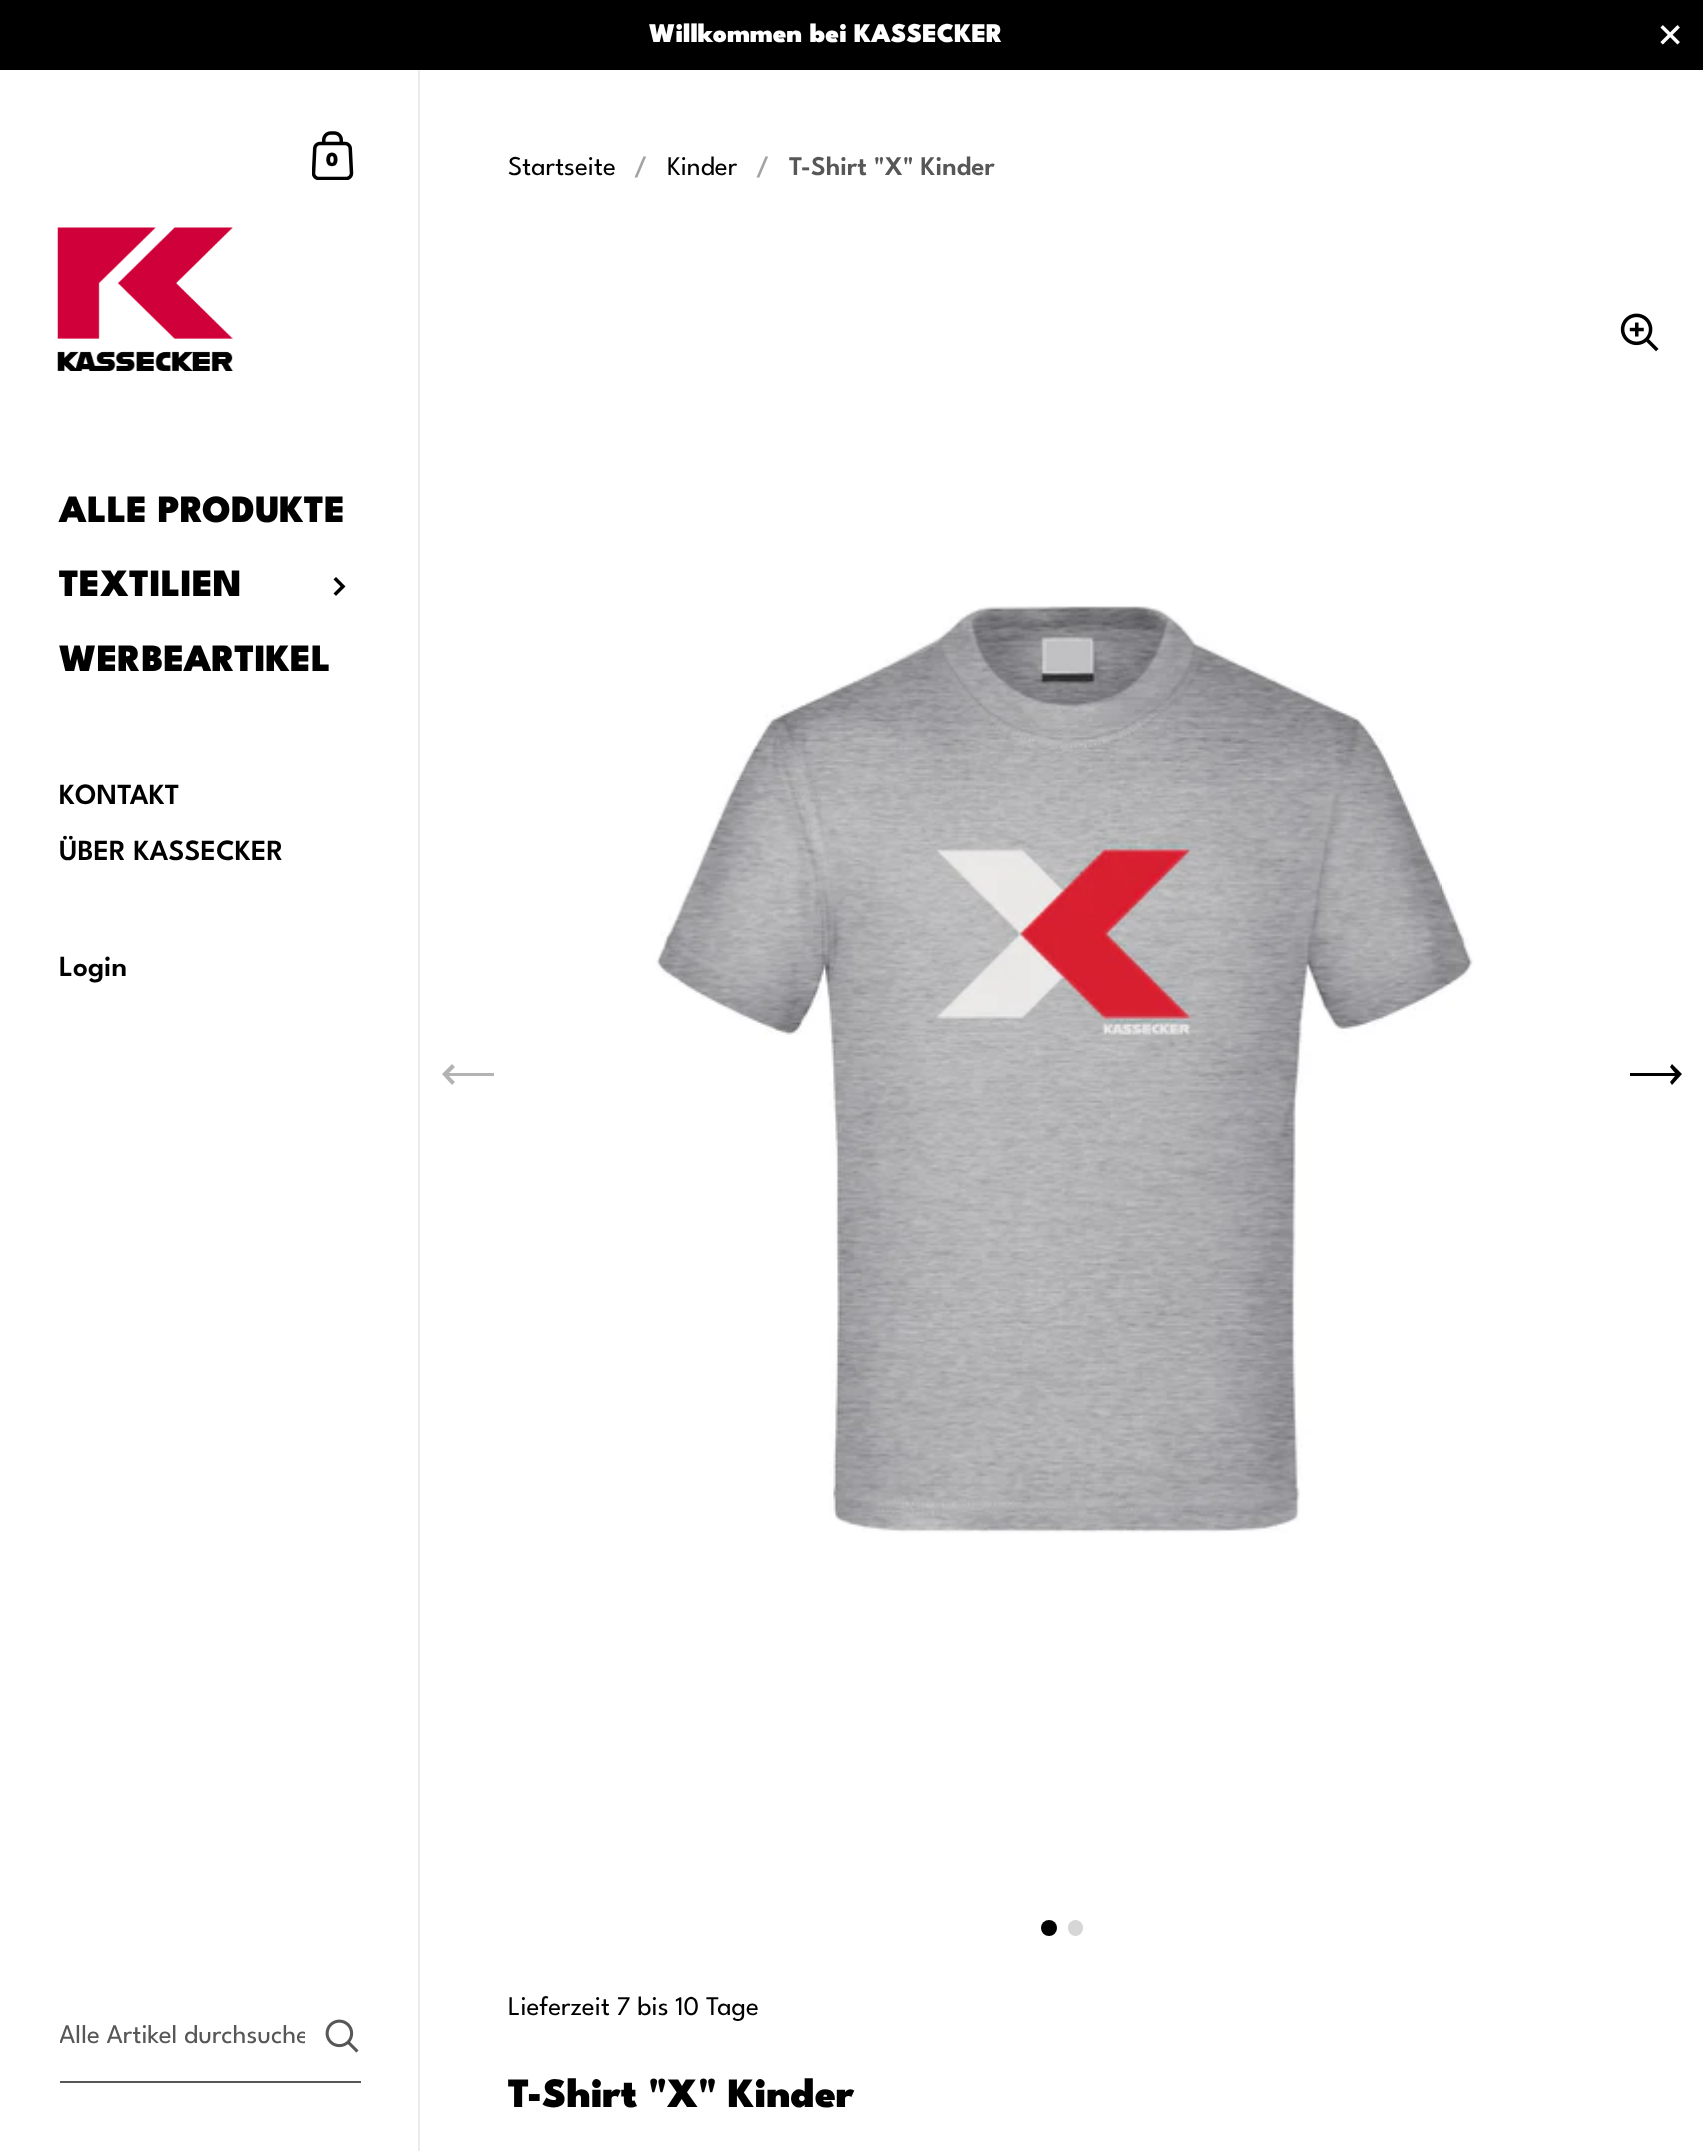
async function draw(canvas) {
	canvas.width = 1703;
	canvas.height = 2151;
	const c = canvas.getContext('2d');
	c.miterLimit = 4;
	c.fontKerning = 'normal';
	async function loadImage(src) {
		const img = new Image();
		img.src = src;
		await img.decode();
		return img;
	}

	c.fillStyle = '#fff';
	c.fillRect(0, 0, 1703, 2151);
	c.fillStyle = '#000';
	c.fillRect(0, 0, 1703, 70);
	c.font = '900 27px League Spartan';
	c.fillStyle = '#fff';
	c.fillText('Willkommen bei KASSECKER', 649, 42);
	c.drawImage(await loadImage('img1.png'), 1660, 25, 20, 20);
	c.fillStyle = '#ebebeb';
	c.fillRect(418, 70, 2, 2081);
	c.drawImage(await loadImage('img2.png'), 312, 131, 42, 49);
	c.font = '900 20px League Spartan';
	c.fillStyle = '#000';
	c.fillText('0', 326, 166);
	c.drawImage(await loadImage('img3.png'), 57, 227, 176, 144);
	c.font = '900 38.5px League Spartan';
	c.fillText('ALLE PRODUKTE', 59, 522);
	c.fillText('TEXTILIEN', 59, 596);
	c.drawImage(await loadImage('img4.png'), 333, 577, 13, 19);
	c.fillText('WERBEARTIKEL', 59, 671);
	c.font = '600 29.25px League Spartan';
	for (const [text, x, y] of [
		['KONTAKT', 59, 804],
		['ÜBER KASSECKER', 59, 860],
		['Login', 59, 976],
	]) {
		c.fillText(text, x, y);
	}
	c.fillStyle = '#575757';
	c.fillRect(60, 2081, 301, 2);
	c.save();
	c.beginPath();
	c.rect(60, 2025, 245, 24);
	c.clip();
	c.font = '27px League Spartan';
	c.fillText('Alle Artikel durchsuche', 59, 2043);
	c.restore();
	c.drawImage(await loadImage('img5.png'), 325, 2019, 34, 34);
	c.font = '27px League Spartan';
	c.fillStyle = '#000';
	c.fillText('Startseite', 508, 175);
	c.font = '600 27px League Spartan';
	c.fillStyle = '#a3a3a3';
	c.fillText('/', 634, 175);
	c.font = '27px League Spartan';
	c.fillStyle = '#000';
	c.fillText('Kinder', 667, 175);
	c.font = '600 27px League Spartan';
	c.fillStyle = '#a3a3a3';
	c.fillText('/', 756, 175);
	c.fillStyle = '#575757';
	c.fillText('T-Shirt "X" Kinder', 789, 175);
	c.drawImage(await loadImage('img6.png'), 1620, 313, 39, 39);
	c.drawImage(await loadImage('img7.png'), 653, 605, 821, 928);
	c.fillStyle = '#b3b3b3';
	c.beginPath();
	c.moveTo(452, 1085);
	c.lineTo(455, 1082);
	c.lineTo(449, 1076);
	c.lineTo(494, 1076);
	c.lineTo(494, 1073);
	c.lineTo(449, 1073);
	c.lineTo(455, 1067);
	c.lineTo(452, 1064);
	c.lineTo(442, 1074);
	c.closePath();
	c.fill();
	c.fillStyle = '#000';
	c.beginPath();
	c.moveTo(1672, 1064);
	c.lineTo(1670, 1067);
	c.lineTo(1675, 1073);
	c.lineTo(1630, 1073);
	c.lineTo(1630, 1076);
	c.lineTo(1675, 1076);
	c.lineTo(1670, 1082);
	c.lineTo(1672, 1085);
	c.lineTo(1682, 1074);
	c.closePath();
	c.fill();
	c.beginPath();
	c.arc(1049, 1928, 8, 0, 2 * Math.PI);
	c.fill();
	c.fillStyle = '#d6d6d6';
	c.beginPath();
	c.roundRect(1068, 1920, 15, 16, 7.5);
	c.fill();
	c.font = '27px League Spartan';
	c.fillStyle = '#000';
	c.fillText('Lieferzeit 7 bis 10 Tage', 508, 2015);
	c.font = '900 41.75px League Spartan';
	c.fillText('T-Shirt "X" Kinder', 508, 2107);
}

draw(document.querySelector('canvas'));
